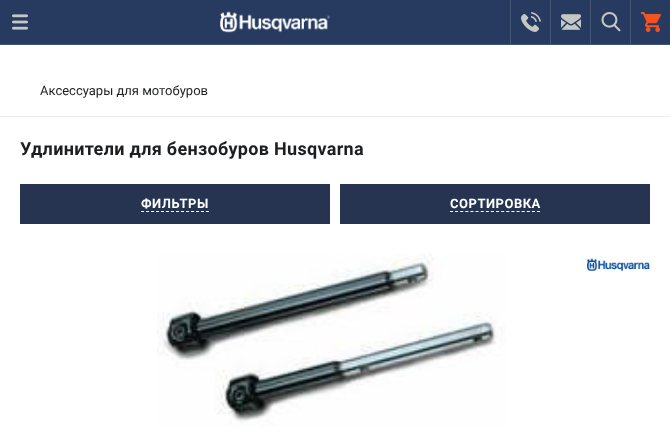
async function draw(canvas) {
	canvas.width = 670;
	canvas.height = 438;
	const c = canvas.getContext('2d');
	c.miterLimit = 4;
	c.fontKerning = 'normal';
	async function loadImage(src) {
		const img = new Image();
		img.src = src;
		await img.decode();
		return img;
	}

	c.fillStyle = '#fff';
	c.fillRect(0, 0, 670, 438);
	c.fillStyle = '#273a60';
	c.fillRect(0, 0, 670, 44);
	c.fillStyle = '#425872';
	c.fillRect(0, 44, 670, 1);
	c.drawImage(await loadImage('img1.png'), 12, 14, 16, 16);
	c.drawImage(await loadImage('img2.png'), 220, 11, 110, 22);
	c.fillStyle = '#475878';
	c.fillRect(510, 0, 1, 44);
	c.drawImage(await loadImage('img3.png'), 521, 12, 20, 20);
	c.fillRect(550, 0, 1, 44);
	c.drawImage(await loadImage('img4.png'), 561, 14, 20, 16);
	c.fillRect(590, 0, 1, 44);
	c.drawImage(await loadImage('img5.png'), 601, 12, 20, 20);
	c.fillRect(630, 0, 1, 44);
	c.drawImage(await loadImage('img6.png'), 641, 12, 20, 20);
	c.fillStyle = '#ececec';
	c.fillRect(0, 116, 670, 1);
	c.font = '13px Roboto';
	c.fillStyle = '#1c1e20';
	c.fillText('Аксессуары для мотобуров', 40, 95);
	c.letterSpacing = '0.3px';
	c.font = 'bold 18px Roboto';
	c.fillText('Удлинители для бензобуров Husqvarna', 20, 155);
	c.fillStyle = '#263451';
	c.fillRect(20, 184, 310, 40);
	c.beginPath();
	c.moveTo(141, 211.5);
	c.lineTo(209, 211.5);
	c.strokeStyle = '#fff';
	c.setLineDash([3, 2]);
	c.stroke();
	c.letterSpacing = '0.5px';
	c.font = 'bold 13px Roboto';
	c.fillStyle = '#fff';
	c.fillText('ФИЛЬТРЫ', 141, 208);
	c.fillStyle = '#263451';
	c.fillRect(340, 184, 310, 40);
	c.beginPath();
	c.moveTo(450, 211.5);
	c.lineTo(540, 211.5);
	c.setLineDash([3, 2.12]);
	c.stroke();
	c.fillStyle = '#fff';
	c.fillText('СОРТИРОВКА', 450, 208);
	c.drawImage(await loadImage('img7.png'), 157, 254, 349, 173);
	c.drawImage(await loadImage('img8.png'), 587, 258, 63, 13);
}

draw(document.querySelector('canvas'));
